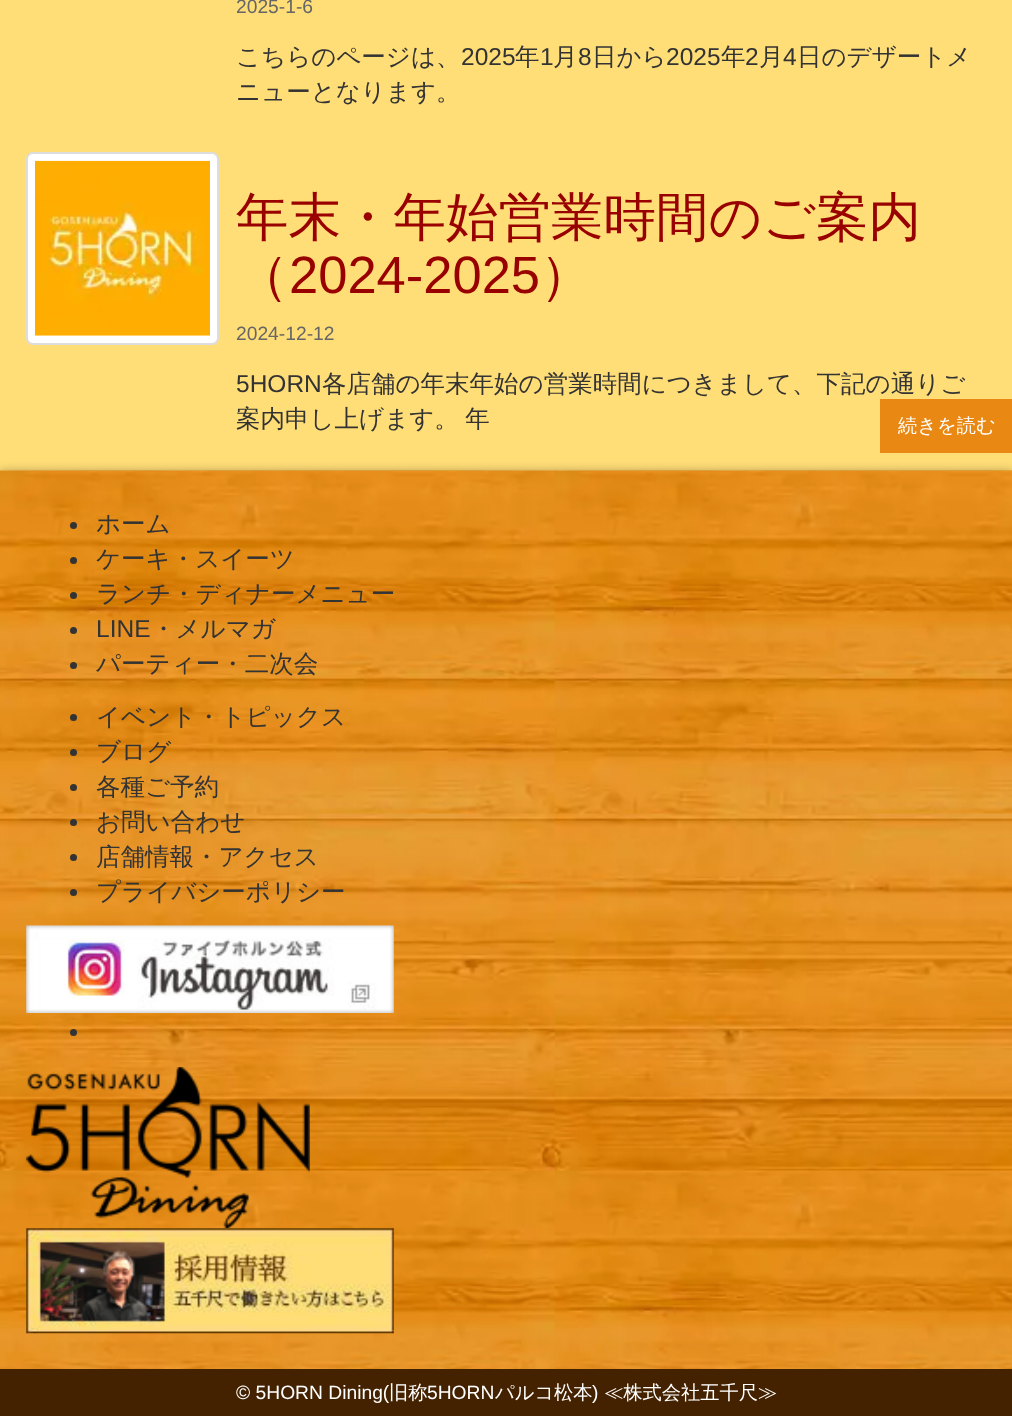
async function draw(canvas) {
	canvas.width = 1012;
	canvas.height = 1416;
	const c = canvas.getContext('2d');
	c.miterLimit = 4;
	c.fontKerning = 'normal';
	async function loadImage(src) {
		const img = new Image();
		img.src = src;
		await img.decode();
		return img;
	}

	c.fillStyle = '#fd7';
	c.fillRect(0, 0, 1012, 1416);
	c.font = '19.25px Liberation Sans';
	c.fillStyle = '#666';
	c.fillText('2025-1-6', 236, 13);
	c.font = '500 24.5px WenQuanYi Zen Hei';
	c.fillStyle = '#333';
	c.fillText('こちらのページは、', 236, 65);
	c.font = '24.5px Liberation Sans';
	c.fillText('2025', 461, 65);
	c.font = '500 24.5px WenQuanYi Zen Hei';
	c.fillText('年', 515, 65);
	c.font = '24.5px Liberation Sans';
	c.fillText('1', 540, 65);
	c.font = '500 24.5px WenQuanYi Zen Hei';
	c.fillText('月', 553, 65);
	c.font = '24.5px Liberation Sans';
	c.fillText('8', 578, 65);
	c.font = '500 24.5px WenQuanYi Zen Hei';
	c.fillText('日から', 592, 65);
	c.font = '24.5px Liberation Sans';
	c.fillText('2025', 666, 65);
	c.font = '500 24.5px WenQuanYi Zen Hei';
	c.fillText('年', 721, 65);
	c.font = '24.5px Liberation Sans';
	c.fillText('2', 745, 65);
	c.font = '500 24.5px WenQuanYi Zen Hei';
	c.fillText('月', 759, 65);
	c.font = '24.5px Liberation Sans';
	c.fillText('4', 783, 65);
	c.font = '500 24.5px WenQuanYi Zen Hei';
	c.fillText('日のデザートメ', 797, 65);
	c.fillText('ニューとなります。', 236, 100);
	c.fillStyle = '#fff';
	c.beginPath();
	c.roundRect(27, 153, 191, 191, 6);
	c.fill();
	c.strokeStyle = '#ddd';
	c.lineWidth = 2;
	c.stroke();
	c.drawImage(await loadImage('img1.png'), 35, 160, 175, 176);
	c.font = '500 52.5px WenQuanYi Zen Hei';
	c.fillStyle = '#900';
	c.fillText('年末・年始営業時間のご案内', 236, 235);
	c.fillText('（', 236, 293);
	c.font = '52.5px Liberation Sans';
	c.fillText('2024-2025', 289, 293);
	c.font = '500 52.5px WenQuanYi Zen Hei';
	c.fillText('）', 540, 293);
	c.font = '19.25px Liberation Sans';
	c.fillStyle = '#666';
	c.fillText('2024-12-12', 236, 340);
	c.font = '24.5px Liberation Sans';
	c.fillStyle = '#333';
	c.fillText('5HORN', 236, 392);
	c.font = '500 24.5px WenQuanYi Zen Hei';
	c.fillText('各店舗の年末年始の営業時間につきまして、下記の通りご', 322, 392);
	c.wordSpacing = '-1px';
	c.fillText('案内申し上げます。 年', 236, 427);
	c.fillStyle = '#e98813';
	c.fillRect(880, 399, 132, 54);
	c.wordSpacing = '0px';
	c.font = '500 19.25px WenQuanYi Zen Hei';
	c.fillStyle = '#fff';
	c.fillText('続きを読む', 898, 432);
	c.fillStyle = '#0000004d';
	c.filter = 'blur(5px)';
	c.beginPath();
	c.rect(0, 471, 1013, 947);
	c.fill();
	c.filter = 'none';
	c.drawImage(await loadImage('img2.png'), 0, 470, 1012, 899);
	c.fillStyle = '#333';
	c.beginPath();
	c.arc(73.5, 525.5, 3.5, 0, 2 * Math.PI);
	c.fill();
	c.font = '500 24.5px WenQuanYi Zen Hei';
	c.fillText('ホーム', 96, 532);
	c.beginPath();
	c.arc(73.5, 560.5, 3.5, 0, 2 * Math.PI);
	c.fill();
	c.fillText('ケーキ・スイーツ', 96, 567);
	c.beginPath();
	c.arc(73.5, 595.5, 3.5, 0, 2 * Math.PI);
	c.fill();
	c.fillText('ランチ・ディナーメニュー', 96, 602);
	c.beginPath();
	c.arc(73.5, 630.5, 3.5, 0, 2 * Math.PI);
	c.fill();
	c.font = '24.5px Liberation Sans';
	c.fillText('LINE', 96, 637);
	c.font = '500 24.5px WenQuanYi Zen Hei';
	c.fillText('・メルマガ', 151, 637);
	c.beginPath();
	c.arc(73.5, 665.5, 3.5, 0, 2 * Math.PI);
	c.fill();
	c.fillText('パーティー・二次会', 96, 672);
	c.beginPath();
	c.arc(73.5, 717.5, 3.5, 0, 2 * Math.PI);
	c.fill();
	c.fillText('イベント・トピックス', 96, 725);
	c.beginPath();
	c.arc(73.5, 752.5, 3.5, 0, 2 * Math.PI);
	c.fill();
	c.fillText('ブログ', 96, 760);
	c.beginPath();
	c.arc(73.5, 787.5, 3.5, 0, 2 * Math.PI);
	c.fill();
	c.fillText('各種ご予約', 96, 795);
	c.beginPath();
	c.arc(73.5, 822.5, 3.5, 0, 2 * Math.PI);
	c.fill();
	c.fillText('お問い合わせ', 96, 830);
	c.beginPath();
	c.arc(73.5, 857.5, 3.5, 0, 2 * Math.PI);
	c.fill();
	c.fillText('店舗情報・アクセス', 96, 865);
	c.beginPath();
	c.arc(73.5, 892.5, 3.5, 0, 2 * Math.PI);
	c.fill();
	c.fillText('プライバシーポリシー', 96, 900);
	c.drawImage(await loadImage('img3.png'), 26, 925, 368, 88);
	c.beginPath();
	c.arc(73.5, 1032.5, 3.5, 0, 2 * Math.PI);
	c.fill();
	c.drawImage(await loadImage('img4.png'), 26, 1067, 284, 162);
	c.drawImage(await loadImage('img5.png'), 26, 1228, 368, 106);
	c.fillStyle = '#420';
	c.fillRect(0, 1369, 1012, 47);
	c.font = '19.25px Liberation Sans';
	c.fillStyle = '#fff';
	c.fillText('© 5HORN Dining(', 236, 1399);
	c.font = '500 19.25px WenQuanYi Zen Hei';
	c.fillText('旧称', 389, 1399);
	c.font = '19.25px Liberation Sans';
	c.fillText('5HORN', 427, 1399);
	c.font = '500 19.25px WenQuanYi Zen Hei';
	c.fillText('パルコ松本', 495, 1399);
	c.font = '19.25px Liberation Sans';
	c.fillText(')', 592, 1399);
	c.font = '500 19.25px WenQuanYi Zen Hei';
	c.fillText('≪株式会社五千尺≫', 604, 1399);
}

draw(document.querySelector('canvas'));
